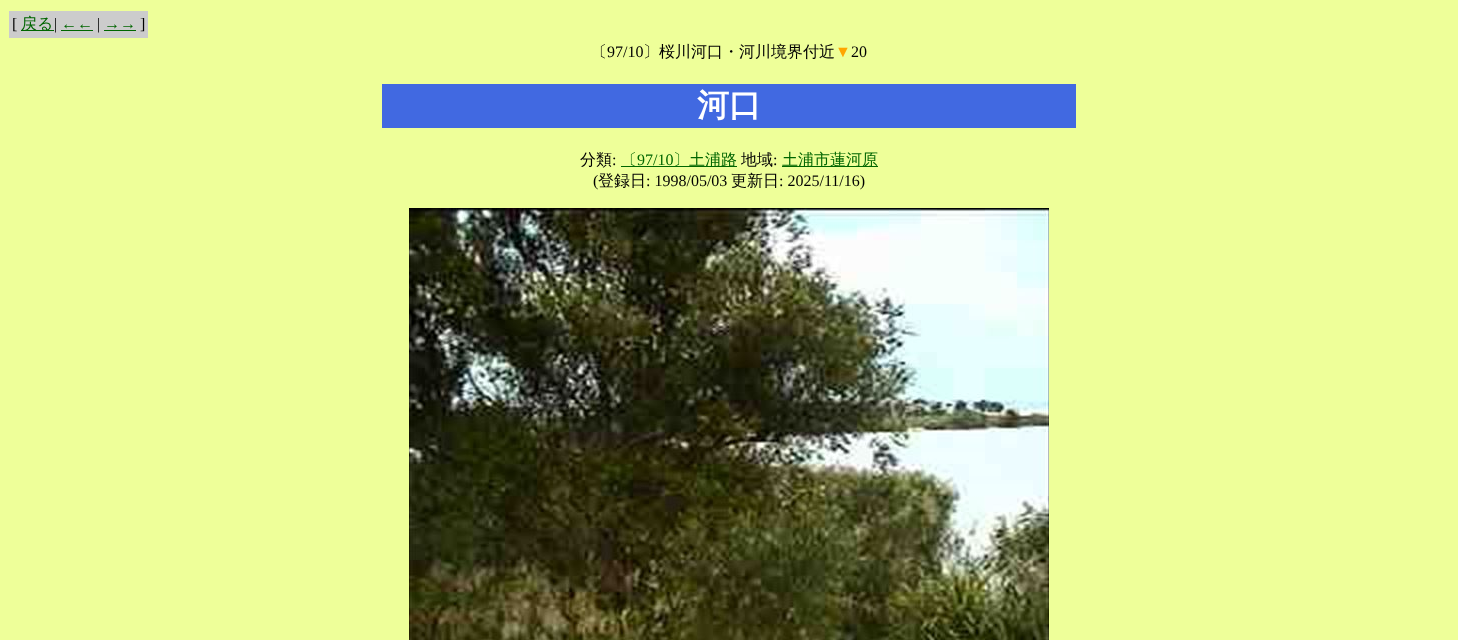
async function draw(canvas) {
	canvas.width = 1458;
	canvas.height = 640;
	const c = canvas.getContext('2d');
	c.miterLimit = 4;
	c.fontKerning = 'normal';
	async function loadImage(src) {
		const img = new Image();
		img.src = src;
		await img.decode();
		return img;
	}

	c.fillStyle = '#ef9';
	c.fillRect(0, 0, 1458, 640);
	c.fillStyle = '#ccc';
	c.fillRect(9, 11, 139, 27);
	c.font = '16px Liberation Serif';
	c.fillStyle = '#000';
	c.fillText('[', 12, 29);
	c.fillStyle = '#060';
	c.fillRect(21, 30, 33, 1);
	c.font = '500 16px WenQuanYi Zen Hei';
	c.fillText('戻る', 21, 29);
	c.font = '16px Liberation Serif';
	c.fillStyle = '#000';
	c.fillText('|', 54, 29);
	c.fillStyle = '#060';
	c.fillText('←←', 61, 29);
	c.fillRect(61, 30, 32, 1);
	c.fillStyle = '#000';
	c.fillText('|', 97, 29);
	c.fillStyle = '#060';
	c.fillText('→→', 104, 29);
	c.fillRect(104, 30, 32, 1);
	c.fillStyle = '#000';
	c.fillText(']', 140, 29);
	c.font = '500 16px WenQuanYi Zen Hei';
	c.fillText('〔', 591, 57);
	c.font = '16px Liberation Serif';
	c.fillText('97/10', 607, 57);
	c.font = '500 16px WenQuanYi Zen Hei';
	c.fillText('〕桜川河口・河川境界付近', 643, 57);
	c.font = '16px Liberation Serif';
	c.fillStyle = '#ffa500';
	c.fillText('▼', 835, 57);
	c.fillStyle = '#000';
	c.fillText('20', 851, 57);
	c.fillStyle = '#4169e1';
	c.fillRect(382, 84, 694, 44);
	c.font = 'bold 32px WenQuanYi Zen Hei';
	c.fillStyle = '#fff';
	c.fillText('河口', 697, 116);
	c.font = '500 16px WenQuanYi Zen Hei';
	c.fillStyle = '#000';
	c.fillText('分類', 580, 165);
	c.font = '16px Liberation Serif';
	c.fillText(':', 612, 165);
	c.fillStyle = '#060';
	c.fillRect(621, 166, 116, 1);
	c.font = '500 16px WenQuanYi Zen Hei';
	c.fillText('〔', 621, 165);
	c.font = '16px Liberation Serif';
	c.fillText('97/10', 637, 165);
	c.font = '500 16px WenQuanYi Zen Hei';
	c.fillText('〕土浦路', 673, 165);
	c.fillStyle = '#000';
	c.fillText('地域', 741, 165);
	c.font = '16px Liberation Serif';
	c.fillText(':', 773, 165);
	c.fillStyle = '#060';
	c.fillRect(782, 166, 96, 1);
	c.font = '500 16px WenQuanYi Zen Hei';
	c.fillText('土浦市蓮河原', 782, 165);
	c.font = '16px Liberation Serif';
	c.fillStyle = '#000';
	c.fillText('(', 593, 186);
	c.font = '500 16px WenQuanYi Zen Hei';
	c.fillText('登録日', 598, 186);
	c.font = '16px Liberation Serif';
	c.fillText(': 1998/05/03', 646, 186);
	c.font = '500 16px WenQuanYi Zen Hei';
	c.fillText('更新日', 731, 186);
	c.font = '16px Liberation Serif';
	c.fillText(': 2025/11/16)', 779, 186);
	c.drawImage(await loadImage('img1.png'), 409, 208, 640, 432);
}

draw(document.querySelector('canvas'));
